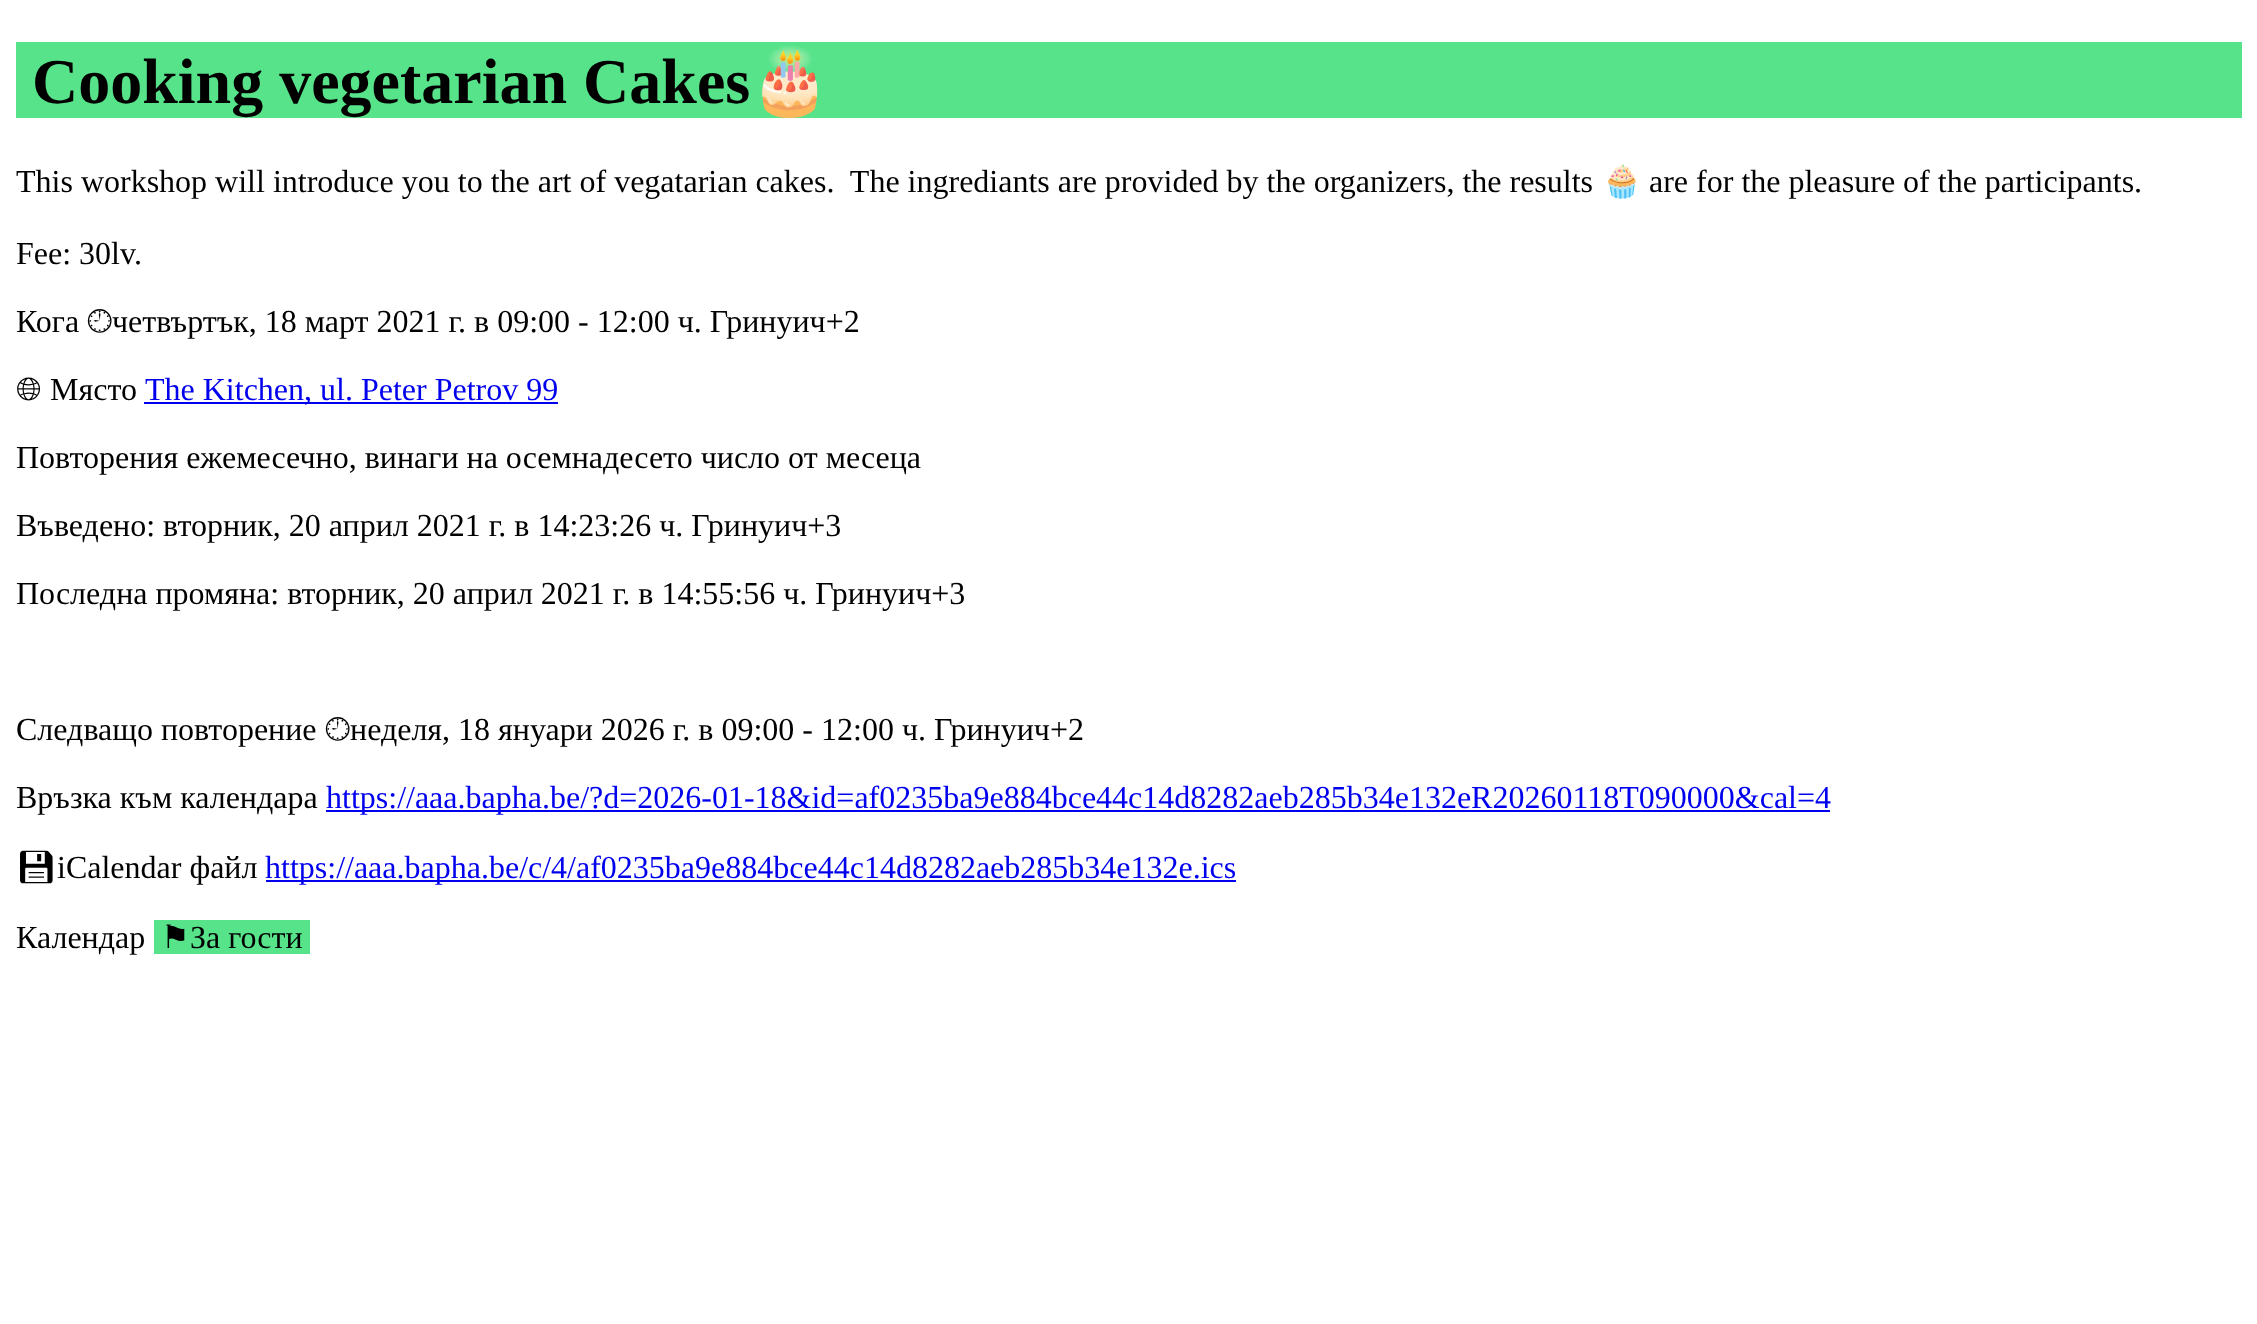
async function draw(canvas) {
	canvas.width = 2257;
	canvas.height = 1324;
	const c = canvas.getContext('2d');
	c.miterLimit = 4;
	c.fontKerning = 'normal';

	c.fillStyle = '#fff';
	c.fillRect(0, 0, 2257, 1324);
	c.fillStyle = '#57e389';
	c.fillRect(16, 42, 2226, 76);
	c.font = 'bold 64px Liberation Serif';
	c.fillStyle = '#000';
	c.fillText('Cooking vegetarian Cakes', 32, 103);
	c.font = 'bold 64px Noto Color Emoji';
	c.fillText('🎂', 750, 103);
	c.font = '32px Liberation Serif';
	c.fillText('This workshop will introduce you to the art of vegatarian cakes.  The ingrediants are provided by the organizers, the results', 16, 192);
	c.font = '32px Noto Color Emoji';
	c.fillText('🧁', 1602, 192);
	c.font = '32px Liberation Serif';
	for (const [text, x, y] of [
		['are for the pleasure of the participants.', 1649, 192],
		['Fee: 30lv.', 16, 264],
		['Кога', 16, 332],
	]) {
		c.fillText(text, x, y);
	}
	c.font = '32px FreeSerif';
	c.fillText('🕘︎', 87, 332);
	c.font = '32px Liberation Serif';
	c.fillText('четвъртък, 18 март 2021 г. в 09:00 - 12:00 ч. Гринуич+2', 112, 332);
	c.font = '32px FreeSans';
	c.fillText('🌐︎', 16, 400);
	c.font = '32px Liberation Serif';
	c.fillText('Място', 50, 400);
	c.fillStyle = '#00e';
	c.fillRect(144, 402, 414, 2);
	c.fillText('The Kitchen, ul. Peter Petrov 99', 145, 400);
	c.fillStyle = '#000';
	for (const [text, x, y] of [
		['Повторения ежемесечно, винаги на осемнадесето число от месеца', 16, 468],
		['Въведено: вторник, 20 април 2021 г. в 14:23:26 ч. Гринуич+3', 16, 536],
		['Последна промяна: вторник, 20 април 2021 г. в 14:55:56 ч. Гринуич+3', 16, 604],
		['Следващо повторение', 16, 740],
	]) {
		c.fillText(text, x, y);
	}
	c.font = '32px FreeSerif';
	c.fillText('🕘︎', 325, 740);
	c.font = '32px Liberation Serif';
	c.fillText('неделя, 18 януари 2026 г. в 09:00 - 12:00 ч. Гринуич+2', 350, 740);
	c.fillText('Връзка към календара', 16, 808);
	c.fillStyle = '#00e';
	c.fillRect(326, 810, 1504, 2);
	c.fillText('https://aaa.bapha.be/?d=2026-01-18&id=af0235ba9e884bce44c14d8282aeb285b34e132eR20260118T090000&cal=4', 326, 808);
	c.font = '32px Noto Emoji';
	c.fillStyle = '#000';
	c.fillText('💾︎', 16, 878);
	c.font = '32px Liberation Serif';
	c.fillText('iCalendar файл', 57, 878);
	c.fillStyle = '#00e';
	c.fillRect(266, 880, 970, 2);
	c.fillText('https://aaa.bapha.be/c/4/af0235ba9e884bce44c14d8282aeb285b34e132e.ics', 265, 878);
	c.fillStyle = '#000';
	c.fillText('Календар', 16, 948);
	c.fillStyle = '#57e389';
	c.fillRect(154, 920, 156, 34);
	c.font = '32px DejaVu Sans';
	c.fillStyle = '#000';
	c.fillText('⚑', 161, 948);
	c.font = '32px Liberation Serif';
	c.fillText('За гости', 190, 948);
}

draw(document.querySelector('canvas'));
